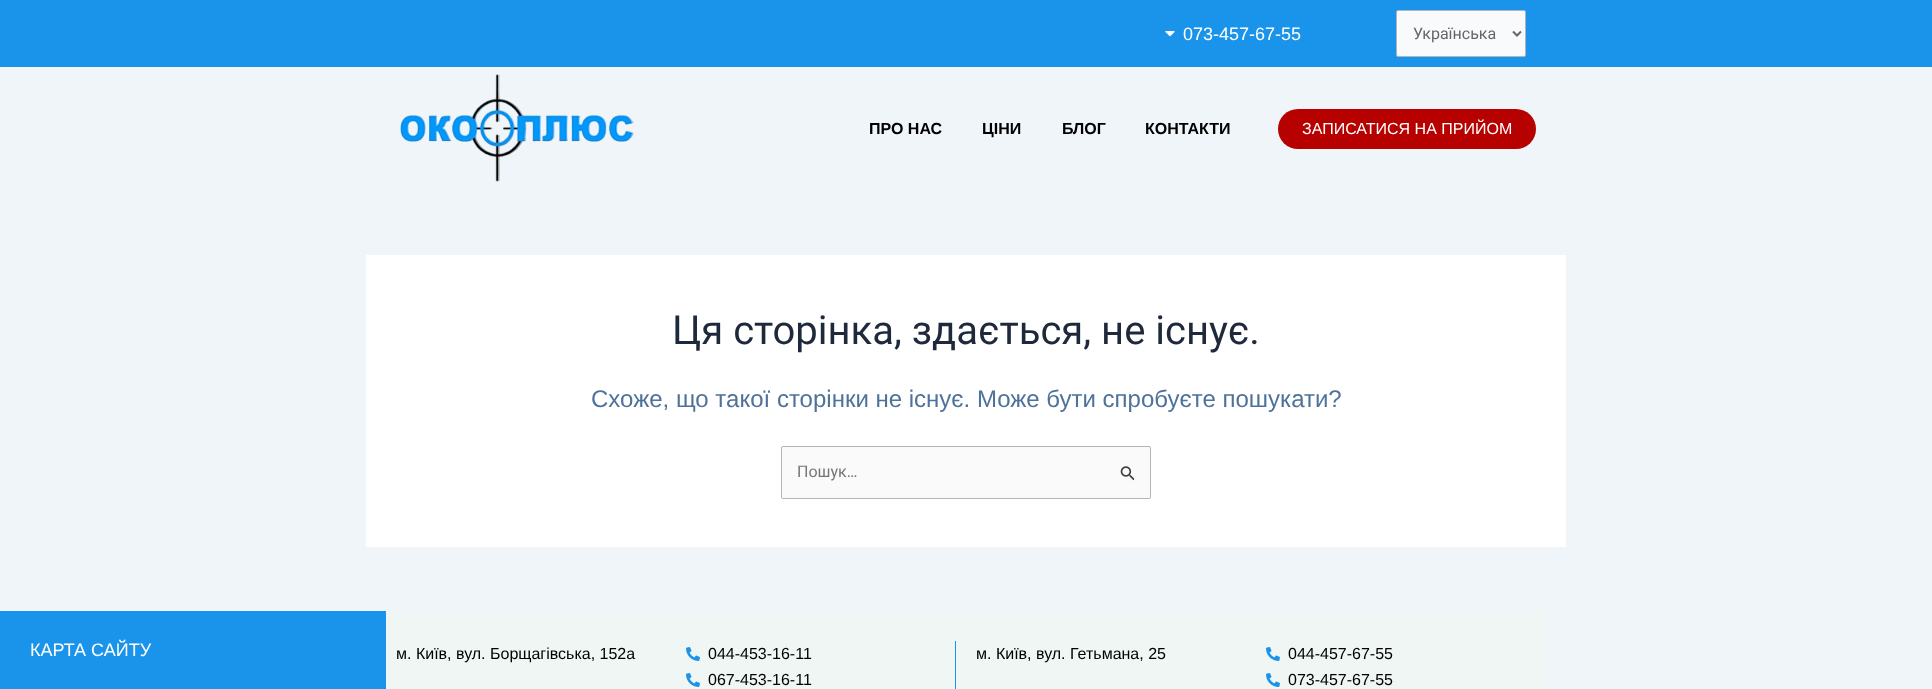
async function draw(canvas) {
	canvas.width = 1932;
	canvas.height = 689;
	const c = canvas.getContext('2d');
	c.miterLimit = 4;
	c.fontKerning = 'normal';
	async function loadImage(src) {
		const img = new Image();
		img.src = src;
		await img.decode();
		return img;
	}

	c.fillStyle = '#f0f5fa';
	c.fillRect(0, 0, 1932, 689);
	c.fillStyle = '#1994ea';
	c.fillRect(0, 0, 1932, 67);
	c.drawImage(await loadImage('img1.png'), 1165, 31, 10, 6);
	c.font = '18px Liberation Sans';
	c.fillStyle = '#fff';
	c.fillText('073-457-67-55', 1183, 40);
	c.fillStyle = '#f9fafb';
	c.beginPath();
	c.roundRect(1396.5, 10.5, 129, 46, 1.5);
	c.fill();
	c.strokeStyle = '#adb6be';
	c.stroke();
	c.beginPath();
	c.moveTo(1513, 31.5);
	c.lineTo(1517, 35.5);
	c.lineTo(1521, 31.5);
	c.strokeStyle = '#666';
	c.lineWidth = 2;
	c.stroke();
	c.font = '16px Roboto';
	c.fillStyle = '#666';
	c.fillText('Українська', 1413, 39);
	c.drawImage(await loadImage('img2.png'), 400, 74, 234, 108);
	c.font = 'bold 16px Liberation Sans';
	c.fillStyle = '#000';
	for (const [text, x, y] of [
		['ПРО НАС', 869, 134],
		['ЦІНИ', 982, 134],
		['БЛОГ', 1062, 134],
		['КОНТАКТИ', 1145, 134],
	]) {
		c.fillText(text, x, y);
	}
	c.fillStyle = '#b70000';
	c.beginPath();
	c.roundRect(1278, 109, 258, 40, 20);
	c.fill();
	c.font = '16px Liberation Sans';
	c.fillStyle = '#fff';
	c.fillText('ЗАПИСАТИСЯ НА ПРИЙОМ', 1302, 134);
	c.fillRect(366, 255, 1200, 292);
	c.font = '40px Roboto';
	c.fillStyle = '#1e293b';
	c.fillText('Ця сторінка, здається, не існує.', 672, 344);
	c.font = '24px Liberation Sans';
	c.fillStyle = '#4e729a';
	c.fillText('Схоже, що такої сторінки не існує. Може бути спробуєте пошукати?', 591, 407);
	c.fillStyle = '#fafafa';
	c.beginPath();
	c.roundRect(781.5, 446.5, 369, 52, 1.5);
	c.fill();
	c.strokeStyle = '#adb6be';
	c.lineWidth = 1;
	c.stroke();
	c.font = '16px Roboto';
	c.fillStyle = '#757575';
	c.fillText('Пошук…', 797, 477);
	c.drawImage(await loadImage('img3.png'), 1120, 466, 14, 15);
	c.fillStyle = '#1994ea';
	c.fillRect(0, 611, 386, 78);
	c.font = '18px Liberation Sans';
	c.fillStyle = '#fff';
	c.fillText('КАРТА САЙТУ', 30, 656);
	c.fillStyle = '#eff6f4';
	c.fillRect(386, 611, 1160, 78);
	c.font = '16px Liberation Sans';
	c.fillStyle = '#000';
	c.fillText('м. Київ, вул. Борщагівська, 152а', 396, 659);
	c.fillStyle = '#1994ea';
	c.fillRect(955, 641, 1, 48);
	c.drawImage(await loadImage('img4.png'), 686, 647, 14, 14);
	c.fillStyle = '#000';
	c.fillText('044-453-16-11', 708, 659);
	c.drawImage(await loadImage('img4.png'), 686, 673, 14, 14);
	c.fillText('067-453-16-11', 708, 685);
	c.fillText('м. Київ, вул. Гетьмана, 25', 976, 659);
	c.drawImage(await loadImage('img4.png'), 1266, 647, 14, 14);
	c.fillText('044-457-67-55', 1288, 659);
	c.drawImage(await loadImage('img4.png'), 1266, 673, 14, 14);
	c.fillText('073-457-67-55', 1288, 685);
}

draw(document.querySelector('canvas'));
